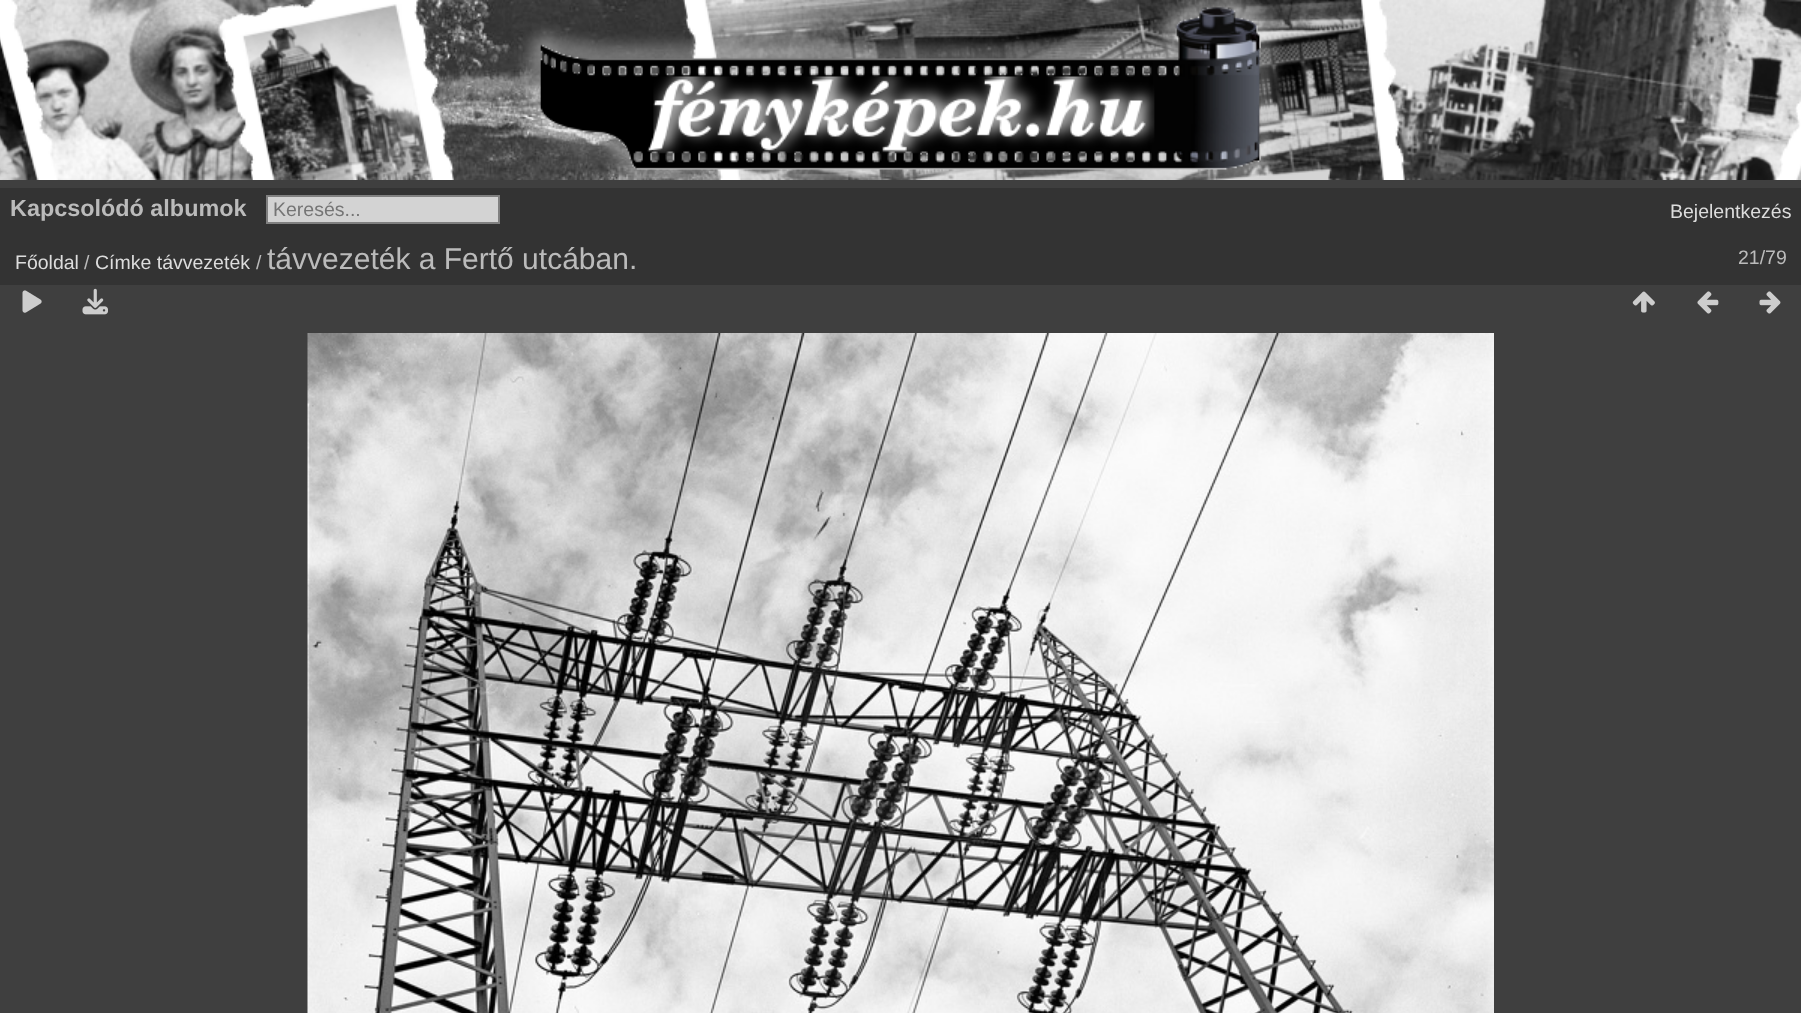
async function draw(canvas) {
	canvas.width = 1801;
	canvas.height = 1013;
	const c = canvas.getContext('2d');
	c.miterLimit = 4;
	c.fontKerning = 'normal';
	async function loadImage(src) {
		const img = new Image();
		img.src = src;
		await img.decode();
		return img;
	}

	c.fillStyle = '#3f3f3f';
	c.fillRect(0, 0, 1801, 1013);
	c.fillStyle = '#d4d4d4';
	c.fillRect(56, 166, 1280, 14);
	c.drawImage(await loadImage('img1.png'), 0, 0, 1801, 180);
	c.fillStyle = '#333';
	c.fillRect(0, 188, 1801, 97);
	c.font = 'bold 23.4px Liberation Sans';
	c.fillStyle = '#bbb';
	c.fillText('Kapcsolódó albumok', 10, 216);
	c.fillStyle = '#d3d3d3';
	c.beginPath();
	c.rect(267, 196, 232, 27);
	c.fill();
	c.strokeStyle = '#808080';
	c.lineWidth = 2;
	c.stroke();
	c.font = '19.5px Liberation Sans';
	c.fillStyle = '#757575';
	c.fillText('Keresés...', 273, 216);
	c.fillStyle = '#ddd';
	c.fillText('Bejelentkezés', 1670, 218);
	c.fillText('Főoldal', 15, 269);
	c.fillStyle = '#bbb';
	c.fillText('/', 84, 269);
	c.fillStyle = '#ddd';
	c.fillText('Címke távvezeték', 95, 269);
	c.fillStyle = '#bbb';
	c.fillText('/', 256, 269);
	c.font = '30px Liberation Sans';
	c.fillText('távvezeték a Fertő utcában.', 267, 269);
	c.font = '19.5px Liberation Sans';
	c.fillText('21/79', 1738, 264);
	c.drawImage(await loadImage('img2.png'), 22, 290, 20, 23);
	c.drawImage(await loadImage('img3.png'), 82, 288, 26, 27);
	c.drawImage(await loadImage('img4.png'), 1632, 291, 23, 22);
	c.drawImage(await loadImage('img5.png'), 1697, 291, 22, 23);
	c.drawImage(await loadImage('img6.png'), 1759, 291, 22, 23);
	c.drawImage(await loadImage('img7.png'), 307, 333, 1187, 680);
}

draw(document.querySelector('canvas'));
